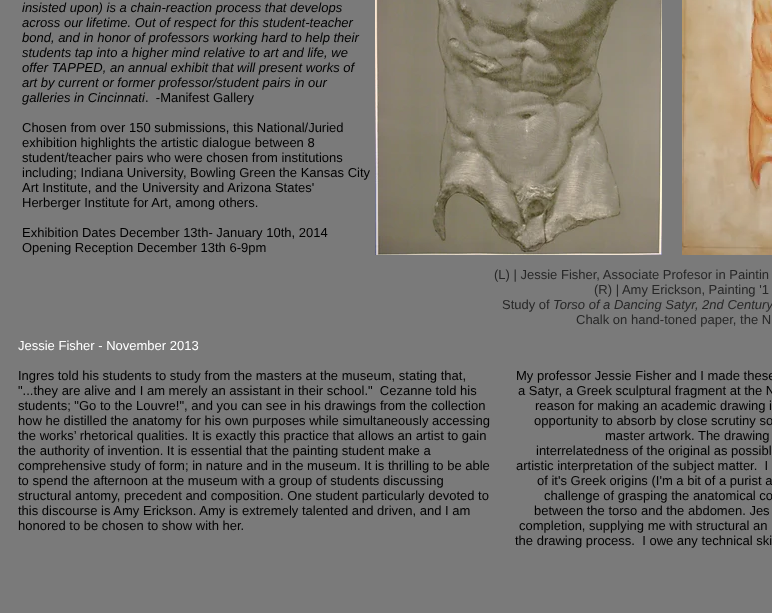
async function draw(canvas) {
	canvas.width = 772;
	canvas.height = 613;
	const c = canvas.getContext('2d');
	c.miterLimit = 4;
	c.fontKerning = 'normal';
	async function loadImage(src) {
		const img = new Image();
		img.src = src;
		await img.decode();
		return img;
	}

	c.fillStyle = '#7a7a7a';
	c.fillRect(0, 0, 772, 613);
	c.font = 'italic 13px Liberation Sans';
	c.fillStyle = '#000';
	for (const [text, x, y] of [
		['insisted upon) is a chain-reaction process that develops', 22, 12],
		['across our lifetime. Out of respect for this student-teacher', 22, 27],
		['bond, and in honor of professors working hard to help their', 22, 42],
		['students tap into a higher mind relative to art and life, we', 22, 57],
		['offer TAPPED, an annual exhibit that will present works of', 22, 72],
		['art by current or former professor/student pairs in our', 22, 87],
		['galleries in Cincinnati', 22, 102],
	]) {
		c.fillText(text, x, y);
	}
	c.font = '13px Liberation Sans';
	for (const [text, x, y] of [
		['.  -Manifest Gallery', 145, 102],
		['Chosen from over 150 submissions, this National/Juried', 22, 132],
		['exhibition highlights the artistic dialogue between 8', 22, 147],
		['student/teacher pairs who were chosen from institutions', 22, 162],
		['including; Indiana University, Bowling Green the Kansas City', 22, 177],
		['Art Institute, and the University and Arizona States\'', 22, 192],
		['Herberger Institute for Art, among others.', 22, 207],
		['Exhibition Dates December 13th- January 10th, 2014', 22, 237],
		['Opening Reception December 13th 6-9pm', 22, 252],
	]) {
		c.fillText(text, x, y);
	}
	c.drawImage(await loadImage('img1.png'), 375, 0, 287, 255);
	c.drawImage(await loadImage('img2.png'), 682, 0, 90, 255);
	c.fillStyle = '#272727';
	for (const [text, x, y] of [
		['(L) | Jessie Fisher, Associate Profesor in Paintin', 494, 279],
		['(R) | Amy Erickson, Painting \'1', 594, 294],
		['Study of', 502, 309],
	]) {
		c.fillText(text, x, y);
	}
	c.font = 'italic 13px Liberation Sans';
	c.fillText('Torso of a Dancing Satyr, 2nd Century', 553, 309);
	c.font = '13px Liberation Sans';
	c.fillText('Chalk on hand-toned paper, the N', 576, 324);
	c.fillStyle = '#fff';
	c.fillText('Jessie Fisher - November 2013', 18, 350);
	c.fillStyle = '#000';
	for (const [text, x, y] of [
		['Ingres told his students to study from the masters at the museum, stating that,', 18, 380],
		['"...they are alive and I am merely an assistant in their school."  Cezanne told his', 18, 395],
		['students; "Go to the Louvre!", and you can see in his drawings from the collection', 18, 410],
		['how he distilled the anatomy for his own purposes while simultaneously accessing', 18, 425],
		['the works’ rhetorical qualities. It is exactly this practice that allows an artist to gain', 18, 440],
		['the authority of invention. It is essential that the painting student make a', 18, 455],
		['comprehensive study of form; in nature and in the museum. It is thrilling to be able', 18, 470],
		['to spend the afternoon at the museum with a group of students discussing', 18, 485],
		['structural antomy, precedent and composition. One student particularly devoted to', 18, 500],
		['this discourse is Amy Erickson. Amy is extremely talented and driven, and I am', 18, 515],
		['honored to be chosen to show with her.', 18, 530],
		['My professor Jessie Fisher and I made these', 516, 380],
		['a Satyr, a Greek sculptural fragment at the N', 518, 395],
		['reason for making an academic drawing i', 535, 410],
		['opportunity to absorb by close scrutiny so', 534, 425],
		['master artwork. The drawing', 605, 440],
		['interrelatedness of the original as possibl', 536, 455],
		['artistic interpretation of the subject matter.  I', 516, 470],
		['of it\'s Greek origins (I\'m a bit of a purist a', 537, 485],
		['challenge of grasping the anatomical co', 544, 500],
		['between the torso and the abdomen. Jes', 534, 515],
		['completion, supplying me with structural an', 519, 530],
		['the drawing process.  I owe any technical ski', 515, 545],
	]) {
		c.fillText(text, x, y);
	}
}

draw(document.querySelector('canvas'));
